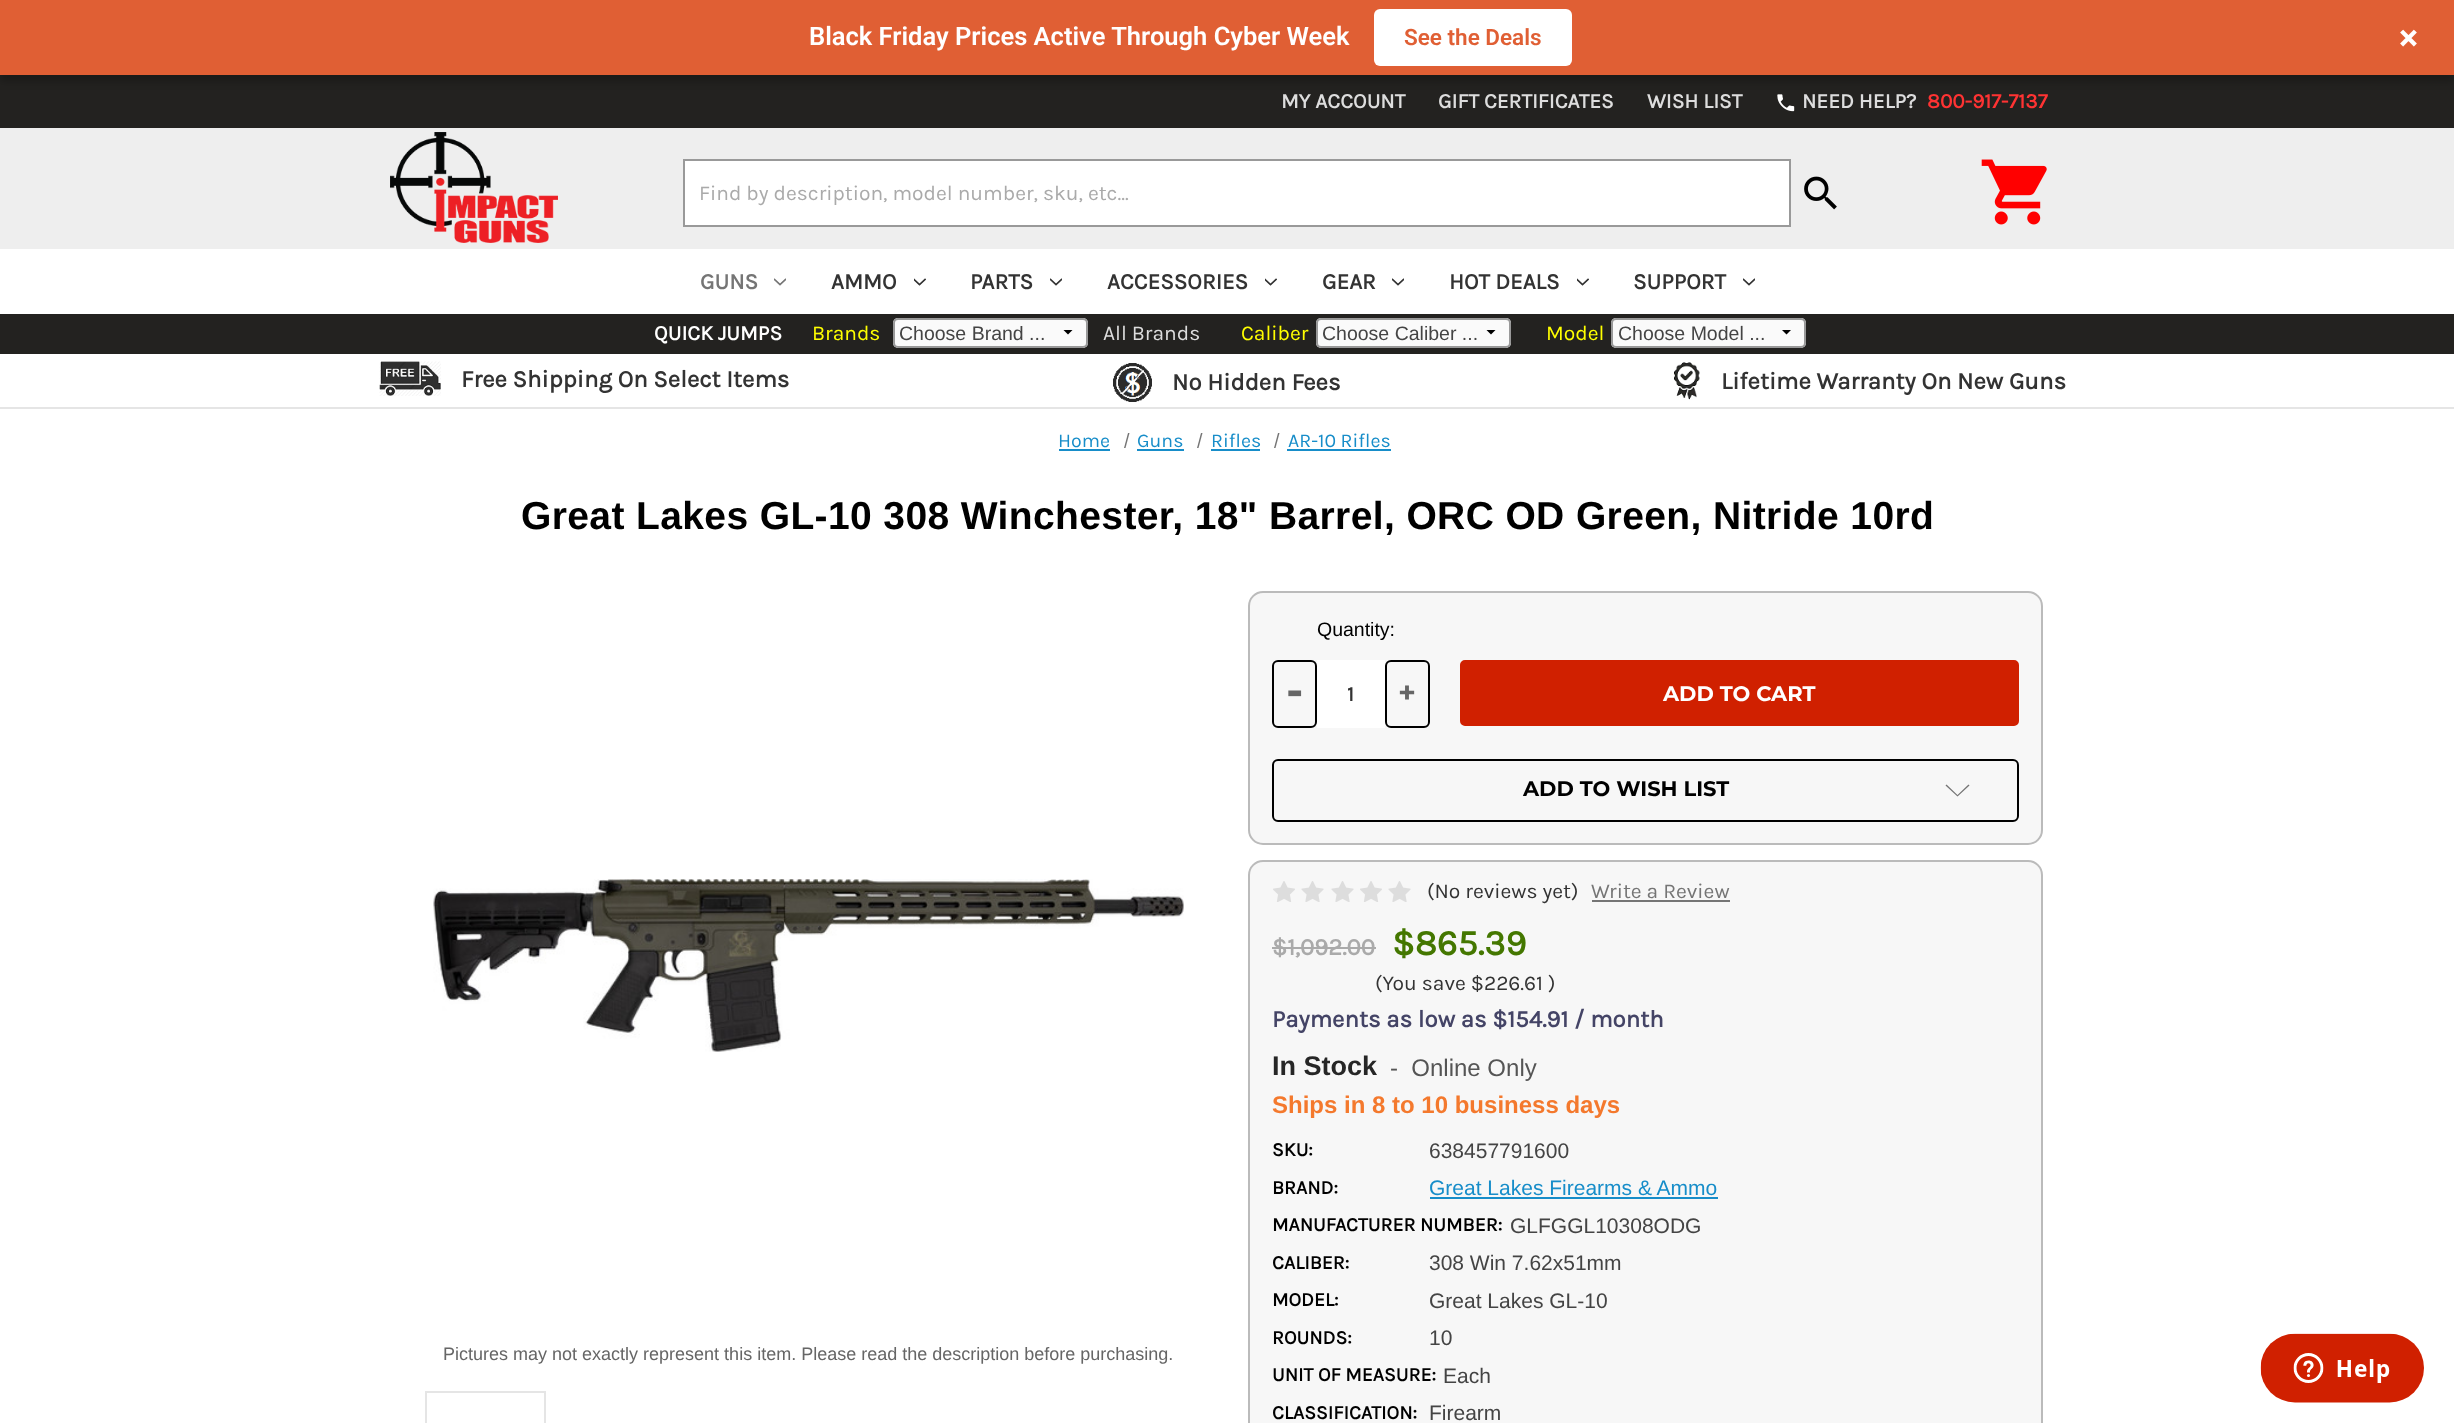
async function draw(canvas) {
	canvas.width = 2454;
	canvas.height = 1423;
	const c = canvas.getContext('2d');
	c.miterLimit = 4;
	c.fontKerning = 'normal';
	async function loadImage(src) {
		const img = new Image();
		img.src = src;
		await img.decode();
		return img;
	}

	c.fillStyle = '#fff';
	c.fillRect(0, 0, 2454, 1423);
	c.fillStyle = '#232220';
	c.fillRect(0, 75, 2454, 53);
	c.drawImage(await loadImage('img1.png'), 1777, 94, 18, 18);
	c.fillStyle = '#00000040';
	c.filter = 'blur(4.5px)';
	c.beginPath();
	c.rect(0, 6, 2454, 75);
	c.fill();
	c.filter = 'none';
	c.fillStyle = '#e05f34';
	c.fillRect(0, 0, 2454, 75);
	c.font = '600 25.5px Roboto';
	c.fillStyle = '#fff';
	c.fillText('Black Friday Prices Active Through Cyber Week', 809, 45);
	c.beginPath();
	c.roundRect(1374, 9, 198, 57, 6);
	c.fill();
	c.font = '600 22.5px Roboto';
	c.fillStyle = '#e05f34';
	c.fillText('See the Deals', 1404, 45);
	c.font = 'bold 36px Roboto';
	c.fillStyle = '#fff';
	c.fillText('×', 2399, 50);
	c.fillStyle = '#e5e5e5';
	c.fillRect(0, 407, 2454, 2);
	c.font = 'bold 21px Karla';
	c.fillStyle = '#ddd';
	for (const [text, x, y] of [
		['MY ACCOUNT', 1281, 108],
		['GIFT CERTIFICATES', 1438, 108],
		['WISH LIST', 1647, 108],
		['NEED HELP?', 1802, 108],
	]) {
		c.fillText(text, x, y);
	}
	c.fillStyle = '#f33';
	c.fillText('800-917-7137', 1927, 108);
	c.fillStyle = '#eee';
	c.fillRect(0, 128, 2454, 121);
	c.drawImage(await loadImage('img2.png'), 390, 132, 168, 111);
	c.fillStyle = '#fff';
	c.beginPath();
	c.rect(684, 160, 1106, 66);
	c.fill();
	c.strokeStyle = '#999';
	c.lineWidth = 2;
	c.stroke();
	c.font = '21px Karla';
	c.fillStyle = '#aaa';
	c.fillText('Find by description, model number, sku, etc...', 699, 200);
	c.drawImage(await loadImage('img3.png'), 1804, 176, 33, 34);
	c.drawImage(await loadImage('img4.png'), 1981, 159, 66, 66);
	c.font = 'bold 22.5px Karla';
	c.fillStyle = '#757575';
	c.fillText('GUNS', 700, 289);
	c.drawImage(await loadImage('img5.png'), 774, 278, 12, 8);
	c.fillStyle = '#333';
	c.fillText('AMMO', 831, 289);
	c.drawImage(await loadImage('img6.png'), 914, 278, 12, 8);
	c.fillText('PARTS', 970, 289);
	c.drawImage(await loadImage('img7.png'), 1050, 278, 12, 8);
	c.fillText('ACCESSORIES', 1107, 289);
	c.drawImage(await loadImage('img6.png'), 1265, 278, 12, 8);
	c.fillText('GEAR', 1322, 289);
	c.drawImage(await loadImage('img7.png'), 1392, 278, 12, 8);
	c.fillText('HOT DEALS', 1449, 289);
	c.drawImage(await loadImage('img6.png'), 1577, 278, 12, 8);
	c.fillText('SUPPORT', 1633, 289);
	c.drawImage(await loadImage('img7.png'), 1743, 278, 12, 8);
	c.fillStyle = '#232220';
	c.fillRect(0, 314, 2454, 40);
	c.font = 'bold 21px Karla';
	c.fillStyle = '#fff';
	c.fillText('QUICK JUMPS', 654, 340);
	c.font = '21px Karla';
	c.fillStyle = '#ff0';
	c.fillText('Brands', 812, 340);
	c.fillStyle = '#fafafa';
	c.beginPath();
	c.roundRect(893, 318, 195, 30, 5);
	c.fill();
	c.fillStyle = '#000';
	c.beginPath();
	c.moveTo(1072.5, 330);
	c.lineTo(1068, 334.5);
	c.lineTo(1063.5, 330);
	c.closePath();
	c.fill();
	c.beginPath();
	c.roundRect(894, 319, 193, 28, 4);
	c.stroke();
	c.font = '19.5px Liberation Sans';
	c.fillStyle = '#444';
	c.fillText('Choose Brand ...', 899, 340);
	c.font = '21px Karla';
	c.fillStyle = '#ddd';
	c.fillText('All Brands', 1103, 340);
	c.fillStyle = '#ff0';
	c.fillText('Caliber', 1241, 340);
	c.fillStyle = '#fafafa';
	c.beginPath();
	c.roundRect(1316, 318, 195, 30, 5);
	c.fill();
	c.fillStyle = '#000';
	c.beginPath();
	c.moveTo(1495.5, 330);
	c.lineTo(1491, 334.5);
	c.lineTo(1486.5, 330);
	c.closePath();
	c.fill();
	c.beginPath();
	c.roundRect(1317, 319, 193, 28, 4);
	c.stroke();
	c.font = '19.5px Liberation Sans';
	c.fillStyle = '#444';
	c.fillText('Choose Caliber ...', 1322, 340);
	c.font = '21px Karla';
	c.fillStyle = '#ff0';
	c.fillText('Model', 1546, 340);
	c.fillStyle = '#fafafa';
	c.beginPath();
	c.roundRect(1611, 318, 195, 30, 5);
	c.fill();
	c.fillStyle = '#000';
	c.beginPath();
	c.moveTo(1791, 330);
	c.lineTo(1786.5, 334.5);
	c.lineTo(1782, 330);
	c.closePath();
	c.fill();
	c.beginPath();
	c.roundRect(1612, 319, 193, 28, 4);
	c.stroke();
	c.font = '19.5px Liberation Sans';
	c.fillStyle = '#444';
	c.fillText('Choose Model ...', 1618, 340);
	c.drawImage(await loadImage('img8.png'), 379, 361, 62, 35);
	c.font = 'bold 24px Karla';
	c.fillStyle = '#333';
	c.fillText('Free Shipping On Select Items', 461, 387);
	c.drawImage(await loadImage('img9.png'), 1113, 363, 39, 39);
	c.fillText('No Hidden Fees', 1172, 390);
	c.drawImage(await loadImage('img10.png'), 1674, 362, 26, 38);
	c.fillText('Lifetime Warranty On New Guns', 1721, 389);
	c.font = '19.5px Karla';
	c.fillStyle = '#178dc9';
	c.fillText('Home', 1058, 447);
	c.fillRect(1059, 449, 51, 2);
	c.fillStyle = '#757575';
	c.beginPath();
	c.moveTo(1128, 433);
	c.lineTo(1129.5, 433);
	c.lineTo(1125.5, 448);
	c.lineTo(1124, 448);
	c.closePath();
	c.fill();
	c.fillStyle = '#178dc9';
	c.fillText('Guns', 1137, 447);
	c.fillRect(1137, 449, 47, 2);
	c.fillStyle = '#757575';
	c.beginPath();
	c.moveTo(1201, 433);
	c.lineTo(1202.5, 433);
	c.lineTo(1198.5, 448);
	c.lineTo(1197, 448);
	c.closePath();
	c.fill();
	c.fillStyle = '#178dc9';
	c.fillText('Rifles', 1211, 447);
	c.fillRect(1211, 449, 49, 2);
	c.fillStyle = '#757575';
	c.beginPath();
	c.moveTo(1278, 433);
	c.lineTo(1279.5, 433);
	c.lineTo(1275.5, 448);
	c.lineTo(1274, 448);
	c.closePath();
	c.fill();
	c.fillStyle = '#178dc9';
	c.fillText('AR-10 Rifles', 1288, 447);
	c.fillRect(1287, 449, 104, 2);
	c.letterSpacing = '0.38px';
	c.font = 'bold 39px Liberation Sans';
	c.fillStyle = '#000';
	c.fillText('Great Lakes GL-10 308 Winchester, 18" Barrel, ORC OD Green, Nitride 10rd', 521, 529);
	c.fillStyle = '#f7f7f7';
	c.beginPath();
	c.roundRect(1249, 592, 793, 252, 14);
	c.fill();
	c.strokeStyle = '#bbb';
	c.stroke();
	c.letterSpacing = '0px';
	c.font = '19.5px Liberation Sans';
	c.fillStyle = '#000';
	c.fillText('Quantity:', 1317, 636);
	c.beginPath();
	c.roundRect(1273, 661, 43, 66, 5);
	c.strokeStyle = '#000';
	c.stroke();
	c.font = 'bold 45px Montserrat';
	c.fillStyle = '#666';
	c.fillText('-', 1286, 706);
	c.fillStyle = '#fff';
	c.fillRect(1317, 660, 68, 68);
	c.font = 'bold 21px Karla';
	c.fillStyle = '#333';
	c.fillText('1', 1347, 701);
	c.beginPath();
	c.roundRect(1386, 661, 43, 66, 5);
	c.stroke();
	c.font = 'bold 30px Montserrat';
	c.fillStyle = '#666';
	c.fillText('+', 1398, 703);
	c.fillStyle = '#d02000';
	c.beginPath();
	c.roundRect(1461, 661, 557, 64, 4);
	c.fill();
	c.strokeStyle = '#d02000';
	c.stroke();
	c.font = 'bold 21px Montserrat';
	c.fillStyle = '#fff';
	c.fillText('ADD TO CART', 1663, 701);
	c.beginPath();
	c.roundRect(1273, 760, 745, 61, 5);
	c.strokeStyle = '#000';
	c.stroke();
	c.fillStyle = '#000';
	c.fillText('ADD TO WISH LIST', 1523, 796);
	c.fillStyle = '#757575';
	c.beginPath();
	c.moveTo(1957.5, 795);
	c.lineTo(1968.5, 784.5);
	c.lineTo(1969.5, 785.5);
	c.lineTo(1957.5, 796.5);
	c.lineTo(1945.5, 785.5);
	c.lineTo(1946.5, 784.5);
	c.closePath();
	c.fill('evenodd');
	c.drawImage(await loadImage('img11.png'), 433, 879, 751, 173);
	c.font = '18px Liberation Sans';
	c.fillStyle = '#666';
	c.fillText('Pictures may not exactly represent this item. Please read the description before purchasing.', 443, 1360);
	c.strokeStyle = '#e5e5e5';
	c.strokeRect(426, 1392, 119, 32);
	c.fillStyle = '#f7f7f7';
	c.beginPath();
	c.roundRect(1249, 861, 793, 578, 14);
	c.fill();
	c.strokeStyle = '#bbb';
	c.stroke();
	c.drawImage(await loadImage('img12.png'), 1273, 881, 22, 21);
	c.drawImage(await loadImage('img13.png'), 1301, 881, 23, 21);
	c.drawImage(await loadImage('img13.png'), 1331, 881, 23, 21);
	c.drawImage(await loadImage('img12.png'), 1360, 881, 22, 21);
	c.drawImage(await loadImage('img13.png'), 1388, 881, 23, 21);
	c.font = '21px Karla';
	c.fillStyle = '#333';
	c.fillText('(No reviews yet)', 1427, 898);
	c.fillStyle = '#757575';
	c.fillText('Write a Review', 1591, 898);
	c.fillRect(1592, 900, 138, 2);
	c.font = 'bold 24px Karla';
	c.fillStyle = '#aaa';
	c.fillText('$1,092.00', 1272, 955);
	c.fillRect(1272, 947, 104, 2);
	c.font = 'bold 36px Karla';
	c.fillStyle = '#470';
	c.fillText('$865.39', 1392, 955);
	c.font = '21px Karla';
	c.fillStyle = '#333';
	c.fillText('(You save $226.61 )', 1375, 990);
	c.font = 'bold 24px Karla';
	c.fillStyle = '#446';
	c.fillText('Payments as low as $154.91 / month', 1272, 1027);
	c.font = 'bold 27px Liberation Sans';
	c.fillStyle = '#262626';
	c.fillText('In Stock', 1272, 1075);
	c.font = '24px Liberation Sans';
	c.fillStyle = '#555';
	c.fillText('-  Online Only', 1390, 1076);
	c.font = 'bold 24px Liberation Sans';
	c.fillStyle = '#f4792d';
	c.fillText('Ships in 8 to 10 business days', 1272, 1113);
	c.font = 'bold 19.5px Karla';
	c.fillStyle = '#000';
	c.fillText('SKU:', 1272, 1156);
	c.font = '21px Liberation Sans';
	c.fillStyle = '#444';
	c.fillText('638457791600', 1429, 1158);
	c.font = 'bold 19.5px Karla';
	c.fillStyle = '#000';
	c.fillText('BRAND:', 1272, 1194);
	c.font = '21px Liberation Sans';
	c.fillStyle = '#178dc9';
	c.fillText('Great Lakes Firearms & Ammo', 1429, 1195);
	c.fillRect(1430, 1197, 288, 2);
	c.font = 'bold 19.5px Karla';
	c.fillStyle = '#000';
	c.fillText('MANUFACTURER NUMBER:', 1272, 1231);
	c.font = '21px Liberation Sans';
	c.fillStyle = '#444';
	c.fillText('GLFGGL10308ODG', 1510, 1233);
	c.font = 'bold 19.5px Karla';
	c.fillStyle = '#000';
	c.fillText('CALIBER:', 1272, 1269);
	c.font = '21px Liberation Sans';
	c.fillStyle = '#444';
	c.fillText('308 Win 7.62x51mm', 1429, 1270);
	c.font = 'bold 19.5px Karla';
	c.fillStyle = '#000';
	c.fillText('MODEL:', 1272, 1306);
	c.font = '21px Liberation Sans';
	c.fillStyle = '#444';
	c.fillText('Great Lakes GL-10', 1429, 1308);
	c.font = 'bold 19.5px Karla';
	c.fillStyle = '#000';
	c.fillText('ROUNDS:', 1272, 1344);
	c.font = '21px Liberation Sans';
	c.fillStyle = '#444';
	c.fillText('10', 1429, 1345);
	c.font = 'bold 19.5px Karla';
	c.fillStyle = '#000';
	c.fillText('UNIT OF MEASURE:', 1272, 1381);
	c.font = '21px Liberation Sans';
	c.fillStyle = '#444';
	c.fillText('Each', 1443, 1383);
	c.font = 'bold 19.5px Karla';
	c.fillStyle = '#000';
	c.fillText('CLASSIFICATION:', 1272, 1419);
	c.font = '21px Liberation Sans';
	c.fillStyle = '#444';
	c.fillText('Firearm', 1429, 1420);
	c.drawImage(await loadImage('img14.png'), 2260, 1333, 164, 70);
}

draw(document.querySelector('canvas'));
